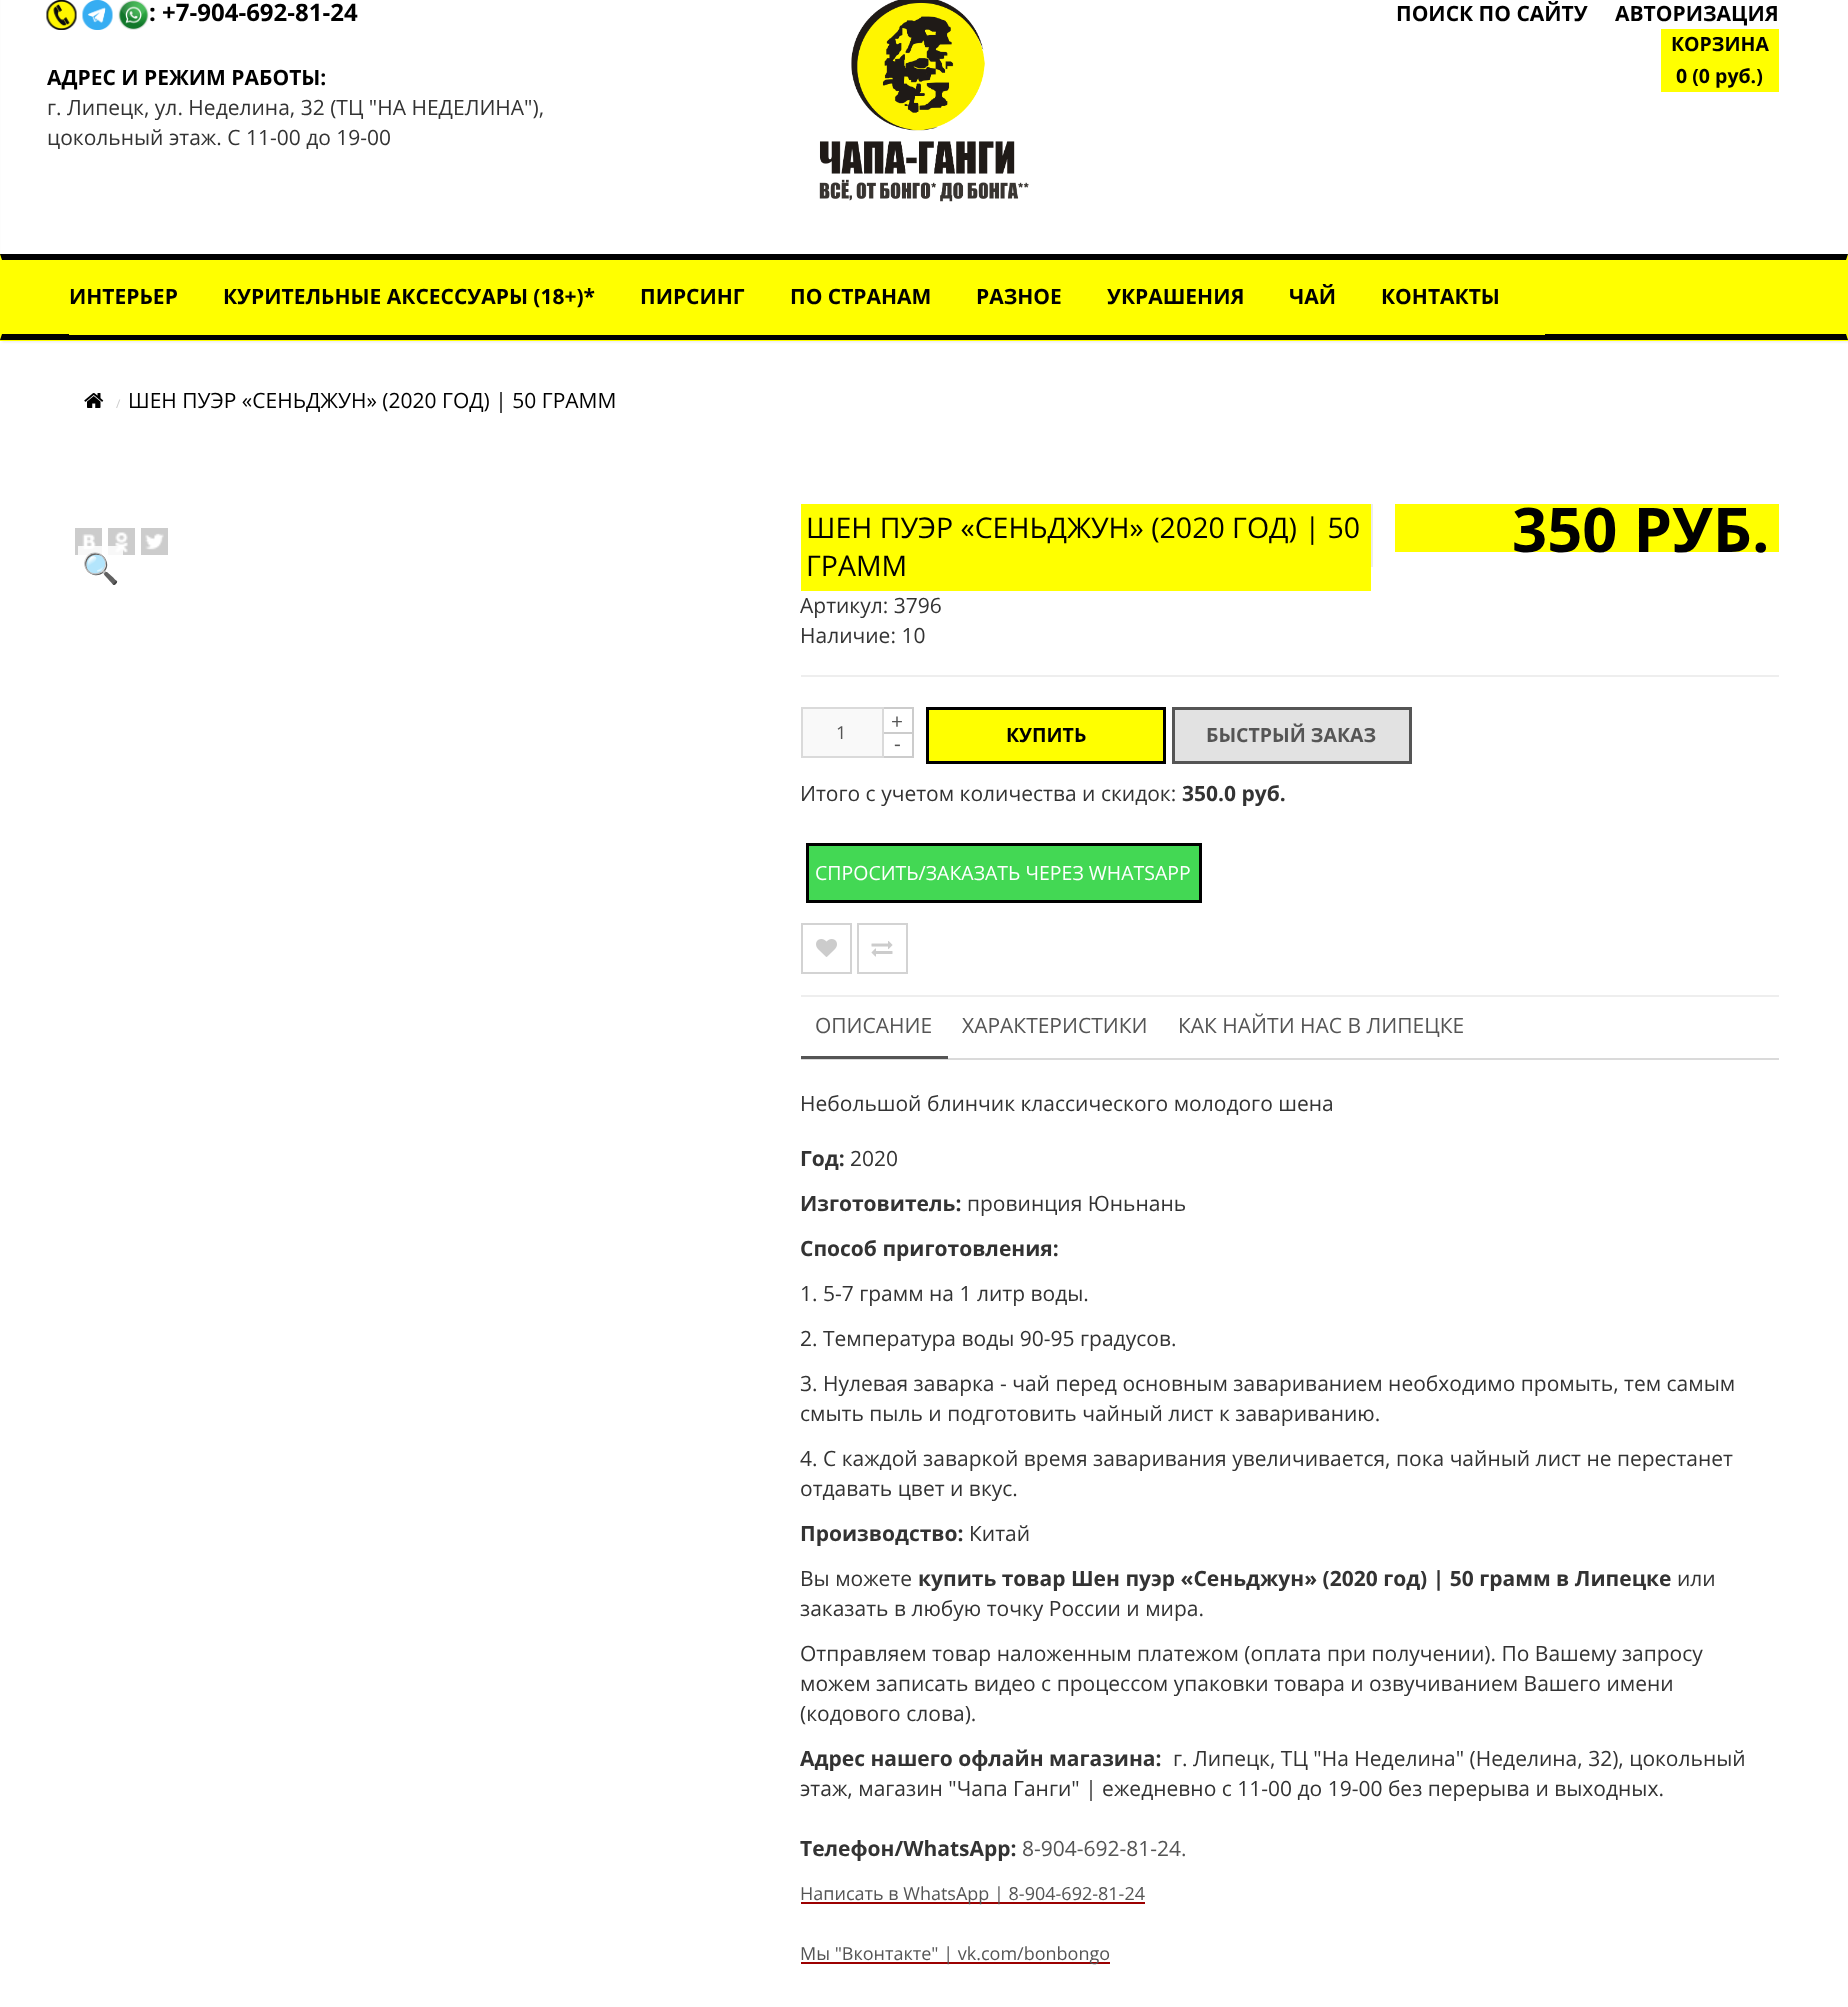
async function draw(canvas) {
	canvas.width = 1848;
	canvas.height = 2007;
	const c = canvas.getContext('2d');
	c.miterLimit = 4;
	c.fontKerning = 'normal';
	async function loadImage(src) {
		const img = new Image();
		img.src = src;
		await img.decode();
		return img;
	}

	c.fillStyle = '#fff';
	c.fillRect(0, 0, 1848, 2007);
	c.fillStyle = '#2222221a';
	c.filter = 'blur(1px)';
	c.beginPath();
	c.rect(2, -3, 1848, 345);
	c.fill();
	c.filter = 'none';
	c.fillStyle = '#fff';
	c.fillRect(1, 0, 1847, 254);
	c.drawImage(await loadImage('img1.png'), 46, 0, 31, 30);
	c.drawImage(await loadImage('img2.png'), 82, 0, 31, 30);
	c.drawImage(await loadImage('img3.png'), 118, 0, 31, 30);
	c.font = 'bold 24px Open Sans';
	c.fillStyle = '#000';
	c.fillText(': +7-904-692-81-24', 149, 21);
	c.font = 'bold 21px Open Sans';
	c.fillText('АДРЕС И РЕЖИМ РАБОТЫ:', 47, 85);
	c.font = '21px Open Sans';
	c.fillStyle = '#333';
	c.fillText('г. Липецк, ул. Неделина, 32 (ТЦ "НА НЕДЕЛИНА"),', 47, 115);
	c.fillText('цокольный этаж. С 11-00 до 19-00', 47, 145);
	c.drawImage(await loadImage('img4.png'), 819, 0, 210, 202);
	c.font = 'bold 21px Open Sans';
	c.fillStyle = '#000';
	c.fillText('ПОИСК ПО САЙТУ', 1396, 21);
	c.fillText('АВТОРИЗАЦИЯ', 1615, 21);
	c.fillStyle = '#ff0';
	c.fillRect(1661, 29, 118, 63);
	c.font = 'bold 19.5px Open Sans';
	c.fillStyle = '#000';
	c.fillText('КОРЗИНА', 1671, 51);
	c.fillText('0 (0 руб.)', 1676, 83);
	c.fillStyle = '#ff0';
	c.fillRect(0, 254, 1848, 87);
	c.fillStyle = '#000';
	c.beginPath();
	c.moveTo(0, 254);
	c.lineTo(1848, 254);
	c.lineTo(1846, 260);
	c.lineTo(2, 260);
	c.closePath();
	c.fill();
	c.beginPath();
	c.moveTo(1848, 340);
	c.lineTo(0, 340);
	c.lineTo(2, 334);
	c.lineTo(1846, 334);
	c.closePath();
	c.fill();
	c.fillStyle = '#ff0';
	c.fillRect(69, 334, 1476, 1);
	c.font = 'bold 21px Open Sans';
	c.fillStyle = '#000';
	for (const [text, x, y] of [
		['ИНТЕРЬЕР', 69, 304],
		['КУРИТЕЛЬНЫЕ АКСЕССУАРЫ (18+)*', 223, 304],
		['ПИРСИНГ', 640, 304],
		['ПО СТРАНАМ', 790, 304],
		['РАЗНОЕ', 976, 304],
		['УКРАШЕНИЯ', 1107, 304],
		['ЧАЙ', 1289, 304],
		['КОНТАКТЫ', 1381, 304],
	]) {
		c.fillText(text, x, y);
	}
	c.drawImage(await loadImage('img5.png'), 84, 393, 20, 15);
	c.font = '12px Open Sans';
	c.fillStyle = '#ccc';
	c.fillText('/', 116, 408);
	c.font = '21px Open Sans';
	c.fillStyle = '#000';
	c.fillText('ШЕН ПУЭР «СЕНЬДЖУН» (2020 ГОД) | 50 ГРАММ', 128, 408);
	c.fillStyle = '#ccc';
	c.fillRect(75, 528, 27, 27);
	c.drawImage(await loadImage('img6.png'), 82, 534, 14, 16);
	c.fillRect(108, 528, 27, 27);
	c.drawImage(await loadImage('img7.png'), 115, 532, 13, 21);
	c.fillRect(141, 528, 27, 27);
	c.drawImage(await loadImage('img8.png'), 145, 533, 19, 17);
	c.fillStyle = '#ffffffdb';
	c.fillRect(78, 546, 45, 9);
	c.font = '30px Noto Color Emoji';
	c.fillStyle = '#c33';
	c.fillText('🔍', 82, 579);
	c.fillStyle = '#ff0';
	c.fillRect(801, 504, 570, 87);
	c.font = '28.5px Open Sans';
	c.fillStyle = '#000';
	c.fillText('ШЕН ПУЭР «СЕНЬДЖУН» (2020 ГОД) | 50', 806, 538);
	c.fillText('ГРАММ', 806, 576);
	c.font = '21px Open Sans';
	c.fillStyle = '#333';
	c.fillText('Артикул: 3796', 800, 613);
	c.fillText('Наличие: 10', 800, 643);
	c.fillStyle = '#ededed';
	c.fillRect(1371, 504, 2, 63);
	c.fillStyle = '#ff0';
	c.fillRect(1395, 504, 384, 48);
	c.font = 'bold 61.5px Open Sans';
	c.fillStyle = '#000';
	c.fillText('350 РУБ.', 1512, 552);
	for (const [x, y, w, h, color] of [
		[801, 675, 978, 2, '#eee'],
		[884, 707, 30, 2, '#ccc'],
		[912, 707, 2, 25, '#ccc'],
	]) {
		c.fillStyle = color;
		c.fillRect(x, y, w, h);
	}
	c.font = '21px Open Sans';
	c.fillStyle = '#555';
	c.fillText('+', 891, 729);
	c.fillStyle = '#f9f9f9';
	c.beginPath();
	c.rect(802, 708, 81, 49);
	c.fill();
	c.strokeStyle = '#dadada';
	c.lineWidth = 2;
	c.stroke();
	c.font = '18px Open Sans';
	c.fillStyle = '#555';
	c.fillText('1', 836, 739);
	for (const [x, y, w, h, color] of [
		[884, 732, 30, 2, '#ccc'],
		[912, 732, 2, 26, '#ccc'],
		[884, 756, 30, 2, '#ccc'],
	]) {
		c.fillStyle = color;
		c.fillRect(x, y, w, h);
	}
	c.font = '21px Open Sans';
	c.fillStyle = '#555';
	c.fillText('-', 894, 751);
	c.fillStyle = '#ff0';
	c.beginPath();
	c.rect(927.5, 708.5, 237, 54);
	c.fill();
	c.strokeStyle = '#000';
	c.lineWidth = 3;
	c.stroke();
	c.font = 'bold 19.5px Open Sans';
	c.fillStyle = '#000';
	c.fillText('КУПИТЬ', 1006, 742);
	c.fillStyle = '#e2e2e2';
	c.beginPath();
	c.rect(1173.5, 708.5, 237, 54);
	c.fill();
	c.strokeStyle = '#555';
	c.stroke();
	c.fillStyle = '#555';
	c.fillText('БЫСТРЫЙ ЗАКАЗ', 1206, 742);
	c.font = '21px Open Sans';
	c.fillStyle = '#333';
	c.fillText('Итого с учетом количества и скидок:', 800, 801);
	c.font = 'bold 21px Open Sans';
	c.fillText('350.0 руб.', 1182, 801);
	c.fillStyle = '#43d854';
	c.beginPath();
	c.rect(807.5, 844.5, 393, 57);
	c.fill();
	c.strokeStyle = '#000';
	c.stroke();
	c.font = '19.5px Open Sans';
	c.fillStyle = '#fff';
	c.fillText('СПРОСИТЬ/ЗАКАЗАТЬ ЧЕРЕЗ WHATSAPP', 815, 880);
	c.strokeStyle = '#d3d3d3';
	c.lineWidth = 2;
	c.strokeRect(802, 924, 49, 49);
	c.drawImage(await loadImage('img9.png'), 816, 939, 21, 18);
	c.strokeRect(858, 924, 49, 49);
	c.drawImage(await loadImage('img10.png'), 871, 941, 22, 16);
	for (const [x, y, w, h, color] of [
		[801, 995, 978, 2, '#eee'],
		[801, 1058, 978, 2, '#dadada'],
		[801, 1056, 147, 3, '#555'],
	]) {
		c.fillStyle = color;
		c.fillRect(x, y, w, h);
	}
	c.font = '21px Open Sans';
	for (const [text, x, y] of [
		['ОПИСАНИЕ', 815, 1033],
		['ХАРАКТЕРИСТИКИ', 962, 1033],
		['КАК НАЙТИ НАС В ЛИПЕЦКЕ', 1178, 1033],
	]) {
		c.fillText(text, x, y);
	}
	c.fillStyle = '#333';
	c.fillText('Небольшой блинчик классического молодого шена', 800, 1111);
	c.font = 'bold 21px Open Sans';
	c.fillText('Год:', 800, 1166);
	c.font = '21px Open Sans';
	c.fillText('2020', 850, 1166);
	c.font = 'bold 21px Open Sans';
	c.fillText('Изготовитель:', 800, 1211);
	c.font = '21px Open Sans';
	c.fillText('провинция Юньнань', 967, 1211);
	c.font = 'bold 21px Open Sans';
	c.fillText('Способ приготовления:', 800, 1256);
	c.font = '21px Open Sans';
	for (const [text, x, y] of [
		['1. 5-7 грамм на 1 литр воды.', 800, 1301],
		['2. Температура воды 90-95 градусов.', 800, 1346],
		['3. Нулевая заварка - чай перед основным завариванием необходимо промыть, тем самым', 800, 1391],
		['смыть пыль и подготовить чайный лист к завариванию.', 800, 1421],
		['4. С каждой заваркой время заваривания увеличивается, пока чайный лист не перестанет', 800, 1466],
		['отдавать цвет и вкус.', 800, 1496],
	]) {
		c.fillText(text, x, y);
	}
	c.font = 'bold 21px Open Sans';
	c.fillText('Производство:', 800, 1541);
	c.font = '21px Open Sans';
	c.fillText('Китай', 969, 1541);
	c.fillText('Вы можете', 800, 1586);
	c.font = 'bold 21px Open Sans';
	c.fillText('купить товар Шен пуэр «Сеньджун» (2020 год) | 50 грамм в Липецке', 918, 1586);
	c.font = '21px Open Sans';
	for (const [text, x, y] of [
		['или', 1677, 1586],
		['заказать в любую точку России и мира.', 800, 1616],
		['Отправляем товар наложенным платежом (оплата при получении). По Вашему запросу', 800, 1661],
		['можем записать видео с процессом упаковки товара и озвучиванием Вашего имени', 800, 1691],
		['(кодового слова).', 800, 1721],
	]) {
		c.fillText(text, x, y);
	}
	c.font = 'bold 21px Open Sans';
	c.fillText('Адрес нашего офлайн магазина:', 800, 1766);
	c.font = '21px Open Sans';
	c.fillText('г. Липецк, ТЦ "На Неделина" (Неделина, 32), цокольный', 1173, 1766);
	c.fillText('этаж, магазин "Чапа Ганги" | ежедневно с 11-00 до 19-00 без перерыва и выходных.', 800, 1796);
	c.font = 'bold 21px Open Sans';
	c.fillText('Телефон/WhatsApp:', 800, 1856);
	c.font = '21px Open Sans';
	c.fillStyle = '#555';
	c.fillText('8-904-692-81-24.', 1022, 1856);
	c.fillStyle = '#9c0000';
	c.fillRect(801, 1902, 344, 2);
	c.font = '18px Open Sans';
	c.fillStyle = '#555';
	c.fillText('Написать в WhatsApp | 8-904-692-81-24', 800, 1900);
	c.fillStyle = '#9c0000';
	c.fillRect(801, 1962, 309, 2);
	c.fillStyle = '#555';
	c.fillText('Мы "Вконтакте" | vk.com/bonbongo', 800, 1960);
}

draw(document.querySelector('canvas'));
